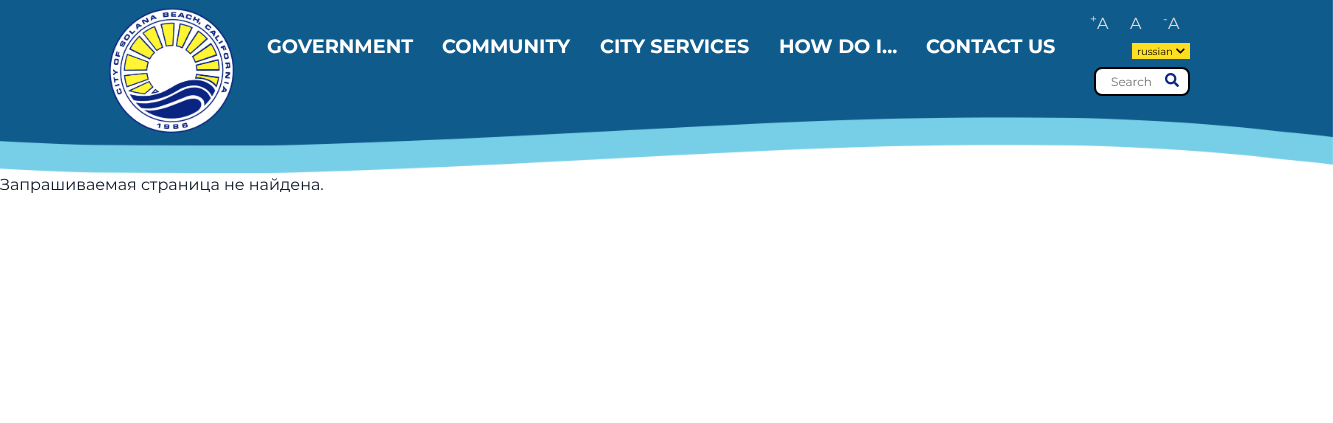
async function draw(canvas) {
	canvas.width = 1333;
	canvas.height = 423;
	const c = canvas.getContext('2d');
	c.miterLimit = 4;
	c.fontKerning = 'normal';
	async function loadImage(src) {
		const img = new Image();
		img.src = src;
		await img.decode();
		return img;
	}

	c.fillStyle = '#fff';
	c.fillRect(0, 0, 1333, 423);
	c.drawImage(await loadImage('img1.png'), 0, 0, 1333, 173);
	c.drawImage(await loadImage('img2.png'), 109, 8, 125, 125);
	c.font = 'bold 19.25px Montserrat';
	for (const [text, x, y] of [
		['GOVERNMENT', 267, 53],
		['COMMUNITY', 442, 53],
		['CITY SERVICES', 600, 53],
		['HOW DO I...', 779, 53],
		['CONTACT US', 926, 53],
	]) {
		c.fillText(text, x, y);
	}
	c.font = '12px Montserrat';
	c.fillStyle = '#dcdcdc';
	c.fillText('+', 1090, 23);
	c.font = '16px Montserrat';
	c.fillText('A', 1097, 29);
	c.fillText('A', 1130, 29);
	c.font = '12px Montserrat';
	c.fillText('-', 1163, 23);
	c.font = '16px Montserrat';
	c.fillText('A', 1168, 29);
	c.fillStyle = '#fede21';
	c.fillRect(1132, 43, 58, 16);
	c.font = '10px Montserrat';
	c.fillStyle = '#000';
	c.fillText('russian', 1137, 55);
	c.drawImage(await loadImage('img3.png'), 1176, 48, 9, 6);
	c.fillStyle = '#fff';
	c.beginPath();
	c.roundRect(1095, 68, 94, 27, 7);
	c.fill();
	c.strokeStyle = '#000';
	c.lineWidth = 2;
	c.stroke();
	c.font = '12px Montserrat';
	c.fillStyle = '#757575';
	c.fillText('Search', 1111, 86);
	c.drawImage(await loadImage('img4.png'), 1165, 73, 14, 14);
	c.font = '16px Montserrat';
	c.fillStyle = '#0e1827';
	c.fillText('Запрашиваемая страница не найдена.', 0, 190);
}

draw(document.querySelector('canvas'));
